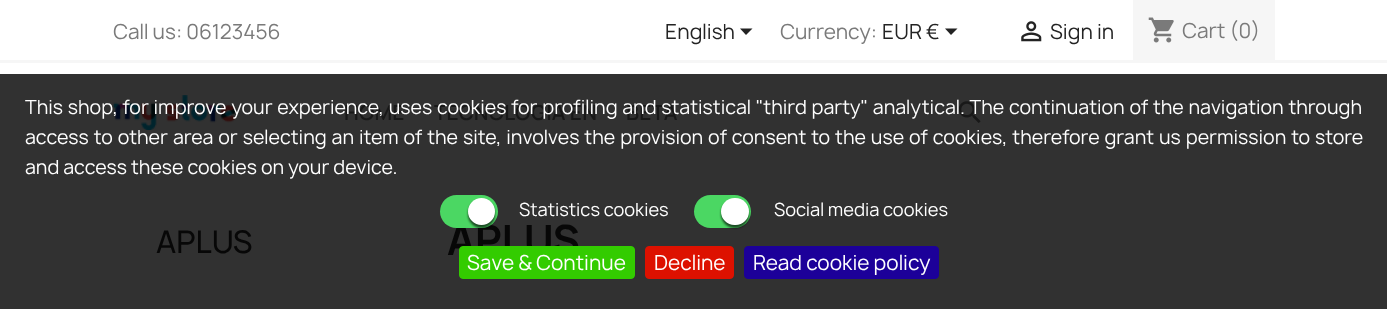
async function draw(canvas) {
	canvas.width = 1387;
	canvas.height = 309;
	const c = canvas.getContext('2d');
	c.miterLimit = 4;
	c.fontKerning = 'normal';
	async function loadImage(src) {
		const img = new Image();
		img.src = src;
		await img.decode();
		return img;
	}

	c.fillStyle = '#313131';
	c.fillRect(0, 0, 1387, 309);
	c.fillStyle = '#fff';
	c.fillRect(0, 0, 1387, 74);
	c.fillStyle = '#f6f6f6';
	c.fillRect(0, 60, 1387, 3);
	c.font = '20px Manrope';
	c.fillStyle = '#7a7a7a';
	c.fillText('Call us: 06123456', 113, 39);
	c.fillStyle = '#232323';
	c.fillText('English', 665, 39);
	c.beginPath();
	c.moveTo(740, 28.5);
	c.lineTo(752.5, 28.5);
	c.lineTo(746, 35);
	c.closePath();
	c.fill();
	c.fillStyle = '#7a7a7a';
	c.fillText('Currency:', 780, 39);
	c.fillStyle = '#232323';
	c.fillText('EUR €', 882, 39);
	c.beginPath();
	c.moveTo(945, 28.5);
	c.lineTo(957.5, 28.5);
	c.lineTo(951, 35);
	c.closePath();
	c.fill();
	c.drawImage(await loadImage('img1.png'), 1021, 21, 21, 21);
	c.fillText('Sign in', 1050, 39);
	c.fillStyle = '#f6f6f6';
	c.fillRect(1133, 0, 142, 60);
	c.drawImage(await loadImage('img2.png'), 1148, 17, 26, 26);
	c.fillStyle = '#7a7a7a';
	c.fillText('Cart (0)', 1182, 38);
	c.drawImage(await loadImage('img3.png'), 112, 95, 126, 35);
	c.font = '600 20px Manrope';
	c.fillStyle = '#181818';
	for (const [text, x, y] of [
		['HOME', 344, 120],
		['TECNOLOGIA EN', 434, 120],
		['BETA', 626, 120],
	]) {
		c.fillText(text, x, y);
	}
	c.drawImage(await loadImage('img4.png'), 958, 101, 23, 22);
	c.font = '500 30px Manrope';
	c.fillStyle = '#070707';
	c.fillText('APLUS', 156, 253);
	c.font = 'bold 40px Manrope';
	c.fillText('APLUS', 447, 255);
	c.wordSpacing = '0.8px';
	c.font = '18.75px Manrope';
	c.fillStyle = '#fff';
	c.fillText('This shop, for improve your experience, uses cookies for profiling and statistical "third party" analytical. The continuation of the navigation through', 25, 114);
	c.wordSpacing = '1px';
	c.fillText('access to other area or selecting an item of the site, involves the provision of consent to the use of cookies, therefore grant us permission to store', 25, 144);
	c.wordSpacing = '0px';
	c.fillText('and access these cookies on your device.', 25, 174);
	c.fillStyle = '#4bd763';
	c.beginPath();
	c.roundRect(440, 195, 58, 33, 16.5);
	c.fill();
	c.fillStyle = '#000000a6';
	c.filter = 'blur(1px)';
	c.beginPath();
	c.roundRect(468, 200, 27, 28, 13.5);
	c.fill();
	c.filter = 'none';
	c.fillStyle = '#fff';
	c.beginPath();
	c.arc(481.5, 211.5, 13.5, 0, 2 * Math.PI);
	c.fill();
	c.font = '17.5px Manrope';
	c.fillText('Statistics cookies', 519, 216);
	c.fillStyle = '#4bd763';
	c.beginPath();
	c.roundRect(694, 195, 57, 33, 16.5);
	c.fill();
	c.fillStyle = '#000000a6';
	c.filter = 'blur(1px)';
	c.beginPath();
	c.roundRect(721, 200, 28, 28, 14);
	c.fill();
	c.filter = 'none';
	c.fillStyle = '#fff';
	c.beginPath();
	c.roundRect(721, 198, 28, 27, 13.5);
	c.fill();
	c.fillText('Social media cookies', 774, 216);
	c.fillStyle = '#3c0';
	c.beginPath();
	c.roundRect(459.5, 246.5, 175, 32, 3.5);
	c.fill();
	c.strokeStyle = '#3c0';
	c.stroke();
	c.font = '20px Manrope';
	c.fillStyle = '#fff';
	c.fillText('Save & Continue', 467, 270);
	c.fillStyle = '#d10';
	c.beginPath();
	c.roundRect(645.5, 246.5, 88, 32, 3.5);
	c.fill();
	c.strokeStyle = '#d10';
	c.stroke();
	c.fillStyle = '#fff';
	c.fillText('Decline', 654, 270);
	c.fillStyle = '#1c0099';
	c.beginPath();
	c.roundRect(744.5, 246.5, 194, 32, 3.5);
	c.fill();
	c.strokeStyle = '#1c0099';
	c.stroke();
	c.fillStyle = '#fff';
	c.fillText('Read cookie policy', 753, 270);
}

draw(document.querySelector('canvas'));
